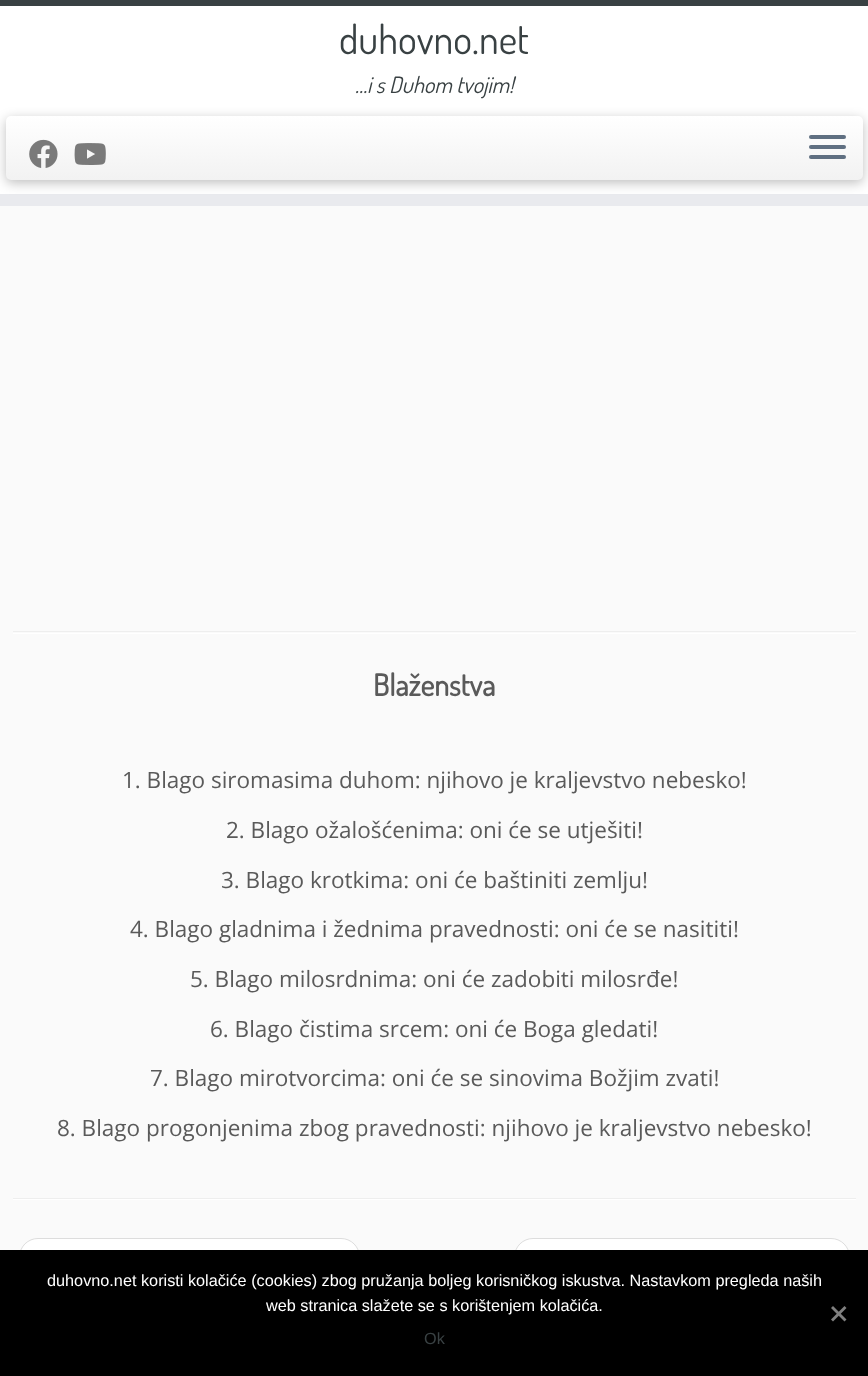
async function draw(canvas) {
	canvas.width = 868;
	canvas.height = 1376;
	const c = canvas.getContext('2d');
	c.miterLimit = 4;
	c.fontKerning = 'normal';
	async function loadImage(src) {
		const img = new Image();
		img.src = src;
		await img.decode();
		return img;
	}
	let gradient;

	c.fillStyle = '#fafafa';
	c.fillRect(0, 0, 868, 1376);
	for (const [x, y, w, h, color] of [
		[0, 6, 868, 188, '#fff'],
		[0, 0, 868, 6, '#394143'],
		[0, 194, 868, 12, '#e9eaee'],
	]) {
		c.fillStyle = color;
		c.fillRect(x, y, w, h);
	}
	c.font = '40px Dosis';
	c.fillStyle = '#394143';
	c.fillText('duhovno.net', 339, 54);
	c.font = 'italic 22.5px Dosis';
	c.fillText('…i s Duhom tvojim!', 355, 93);
	c.fillStyle = '#00000040';
	c.filter = 'blur(6px)';
	c.beginPath();
	c.roundRect(6, 119, 857, 64, 5);
	c.fill();
	c.filter = 'none';
	gradient = c.createLinearGradient(434, 116, 434, 180);
	gradient.addColorStop(0, '#fff');
	gradient.addColorStop(1, '#f2f2f2');
	c.fillStyle = gradient;
	c.beginPath();
	c.roundRect(6, 116, 857, 64, 5);
	c.fill();
	c.drawImage(await loadImage('img1.png'), 29, 139, 29, 29);
	c.drawImage(await loadImage('img2.png'), 74, 143, 32, 22);
	c.fillStyle = '#5f6f81';
	c.beginPath();
	c.roundRect(809, 135, 37, 4, 2);
	c.fill();
	c.beginPath();
	c.roundRect(809, 145, 37, 4, 2);
	c.fill();
	c.beginPath();
	c.roundRect(809, 155, 37, 4, 2);
	c.fill();
	c.fillStyle = '#eee';
	c.fillRect(13, 631, 843, 1);
	c.fillStyle = '#fff';
	c.fillRect(13, 633, 843, 1);
	c.font = 'bold 30px Dosis';
	c.fillStyle = '#5a5a5a';
	c.fillText('Blaženstva', 373, 696);
	c.font = '22.5px Open Sans';
	for (const [text, x, y] of [
		['1. Blago siromasima duhom: njihovo je kraljevstvo nebesko!', 122, 788],
		['2. Blago ožalošćenima: oni će se utješiti!', 226, 838],
		['3. Blago krotkima: oni će baštiniti zemlju!', 221, 888],
		['4. Blago gladnima i žednima pravednosti: oni će se nasititi!', 130, 937],
		['5. Blago milosrdnima: oni će zadobiti milosrđe!', 190, 987],
		['6. Blago čistima srcem: oni će Boga gledati!', 210, 1037],
		['7. Blago mirotvorcima: oni će se sinovima Božjim zvati!', 150, 1086],
		['8. Blago progonjenima zbog pravednosti: njihovo je kraljevstvo nebesko!', 57, 1136],
	]) {
		c.fillText(text, x, y);
	}
	c.fillStyle = '#eee';
	c.fillRect(13, 1198, 843, 1);
	c.fillStyle = '#fff';
	c.fillRect(13, 1199, 843, 1);
	c.beginPath();
	c.roundRect(19.5, 1238.5, 340, 41, 18.5);
	c.fill();
	c.strokeStyle = '#ddd';
	c.stroke();
	c.beginPath();
	c.roundRect(514.5, 1238.5, 335, 41, 18.5);
	c.fill();
	c.stroke();
	c.fillStyle = '#000';
	c.fillRect(0, 1250, 868, 126);
	c.font = '16.25px Liberation Sans';
	c.fillStyle = '#fff';
	c.fillText('duhovno.net koristi kolačiće (cookies) zbog pružanja boljeg korisničkog iskustva. Nastavkom pregleda naših', 47, 1286);
	c.fillText('web stranica slažete se s korištenjem kolačića.', 266, 1311);
	c.fillStyle = '#808080';
	c.beginPath();
	c.moveTo(844.5, 1306);
	c.lineTo(846.5, 1308);
	c.lineTo(833, 1321.5);
	c.lineTo(831, 1319.5);
	c.closePath();
	c.fill();
	c.beginPath();
	c.moveTo(831, 1308);
	c.lineTo(833, 1306);
	c.lineTo(846.5, 1319.5);
	c.lineTo(844.5, 1321.5);
	c.closePath();
	c.fill();
	c.fillStyle = '#394143';
	c.fillText('Ok', 424, 1344);
}

draw(document.querySelector('canvas'));
